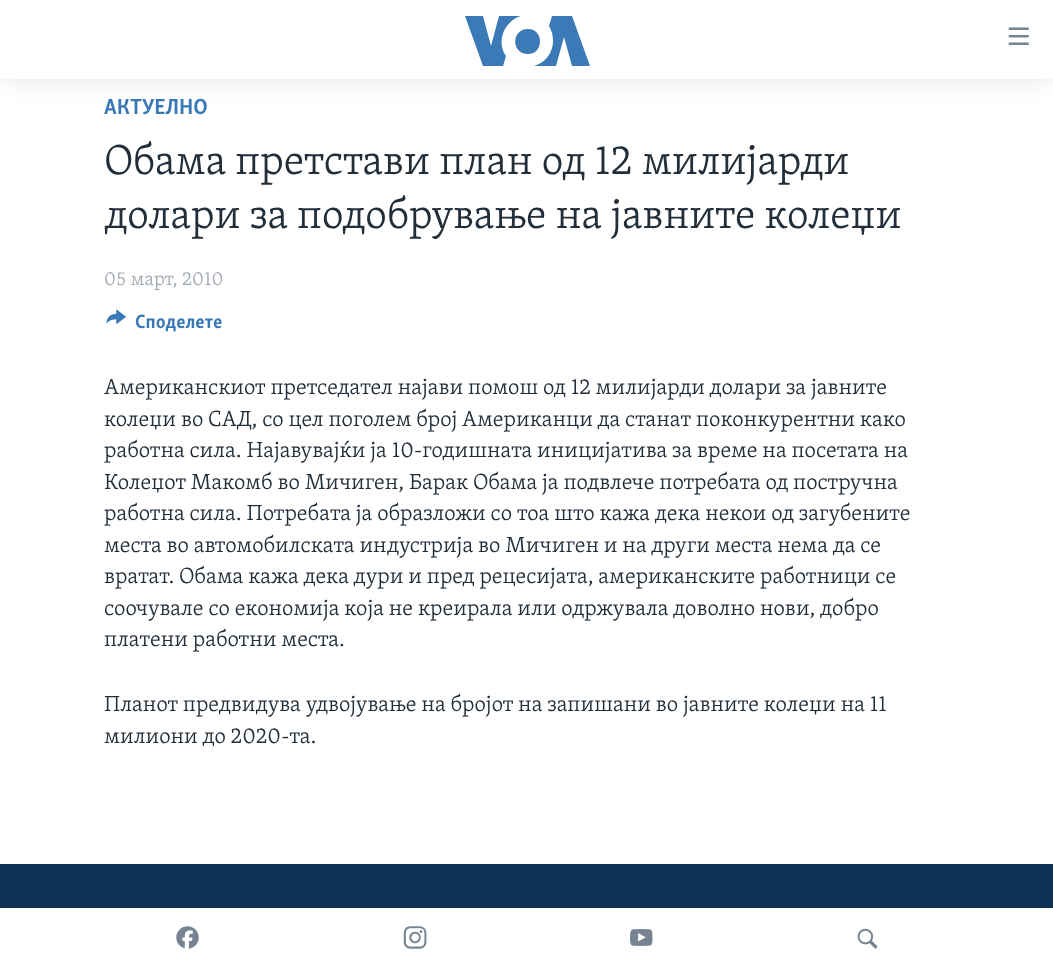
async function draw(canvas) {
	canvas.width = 1053;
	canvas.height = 970;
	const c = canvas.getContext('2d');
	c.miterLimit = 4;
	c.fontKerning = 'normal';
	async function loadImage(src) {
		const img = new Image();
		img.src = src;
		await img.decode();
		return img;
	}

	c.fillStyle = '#fff';
	c.fillRect(0, 0, 1053, 970);
	c.fillStyle = '#0000001a';
	c.filter = 'blur(12.5px)';
	c.beginPath();
	c.rect(0, 0, 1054, 79);
	c.fill();
	c.filter = 'none';
	c.fillStyle = '#fff';
	c.fillRect(0, 0, 1053, 79);
	c.fillStyle = '#3b79b7';
	c.beginPath();
	c.moveTo(506, 56);
	c.lineTo(503, 66);
	c.lineTo(483, 66);
	c.lineTo(465, 16);
	c.lineTo(483, 16);
	c.lineTo(491, 46);
	c.lineTo(499, 16);
	c.lineTo(521, 16);
	c.bezierCurveTo(504, 21, 496, 42, 506, 56);
	c.closePath();
	c.moveTo(528, 29);
	c.bezierCurveTo(511, 29, 511, 54, 528, 54);
	c.bezierCurveTo(544, 54, 544, 29, 528, 29);
	c.closePath();
	c.moveTo(553, 41);
	c.bezierCurveTo(553, 53, 545, 63, 534, 66);
	c.lineTo(556, 66);
	c.lineTo(564, 37);
	c.lineTo(572, 66);
	c.lineTo(590, 66);
	c.lineTo(572, 16);
	c.lineTo(552, 16);
	c.lineTo(549, 26);
	c.bezierCurveTo(552, 31, 553, 36, 553, 41);
	c.closePath();
	c.fill();
	c.drawImage(await loadImage('img1.png'), 1008, 27, 21, 18);
	c.fillStyle = '#0d3456';
	c.fillRect(0, 864, 1053, 44);
	c.fillStyle = '#0000001a';
	c.filter = 'blur(12.5px)';
	c.beginPath();
	c.rect(0, 908, 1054, 62);
	c.fill();
	c.filter = 'none';
	c.fillStyle = '#fff';
	c.fillRect(0, 908, 1053, 62);
	c.drawImage(await loadImage('img2.png'), 176, 926, 23, 23);
	c.drawImage(await loadImage('img3.png'), 403, 926, 24, 23);
	c.drawImage(await loadImage('img4.png'), 630, 929, 23, 17);
	c.drawImage(await loadImage('img5.png'), 857, 928, 21, 21);
	c.font = 'bold 22.5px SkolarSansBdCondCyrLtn';
	c.fillStyle = '#3a79b7';
	c.fillText('АКТУЕЛНО', 104, 114);
	c.font = '300 42.75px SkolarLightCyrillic';
	c.fillStyle = '#222f3a';
	c.fillText('Обама претстави план од 12 милијарди', 104, 174);
	c.fillText('долари за подобрување на јавните колеџи', 104, 228);
	c.font = '300 19.75px SkolarLightCyrillic';
	c.fillStyle = '#a1aab4';
	c.fillText('05 март, 2010', 104, 285);
	c.drawImage(await loadImage('img6.png'), 106, 309, 21, 16);
	c.font = 'bold 19.75px SkolarSansBdCondCyrLtn';
	c.fillStyle = '#3a79b7';
	c.fillText('Споделете', 135, 328);
	c.font = '300 22.5px SkolarLightCyrillic';
	c.fillStyle = '#222f3a';
	for (const [text, x, y] of [
		['Американскиот претседател најави помош од 12 милијарди долари за јавните', 104, 394],
		['колеџи во САД, со цел поголем број Американци да станат поконкурентни како', 104, 426],
		['работна сила. Најавувајќи ја 10-годишната иницијатива за време на посетата на', 104, 457],
		['Колеџот Макомб во Мичиген, Барак Обама ја подвлече потребата од постручна', 104, 489],
		['работна сила. Потребата ја образложи со тоа што кажа дека некои од загубените', 104, 520],
		['места во автомобилската индустрија во Мичиген и на други места нема да се', 104, 552],
		['вратат. Обама кажа дека дури и пред рецесијата, американските работници се', 104, 583],
		['соочувале со економија која не креирала или одржувала доволно нови, добро', 104, 615],
		['платени работни места.', 104, 646],
		['Планот предвидува удвојување на бројот на запишани во јавните колеџи на 11', 104, 711],
		['милиони до 2020-та.', 104, 743],
	]) {
		c.fillText(text, x, y);
	}
}

draw(document.querySelector('canvas'));
